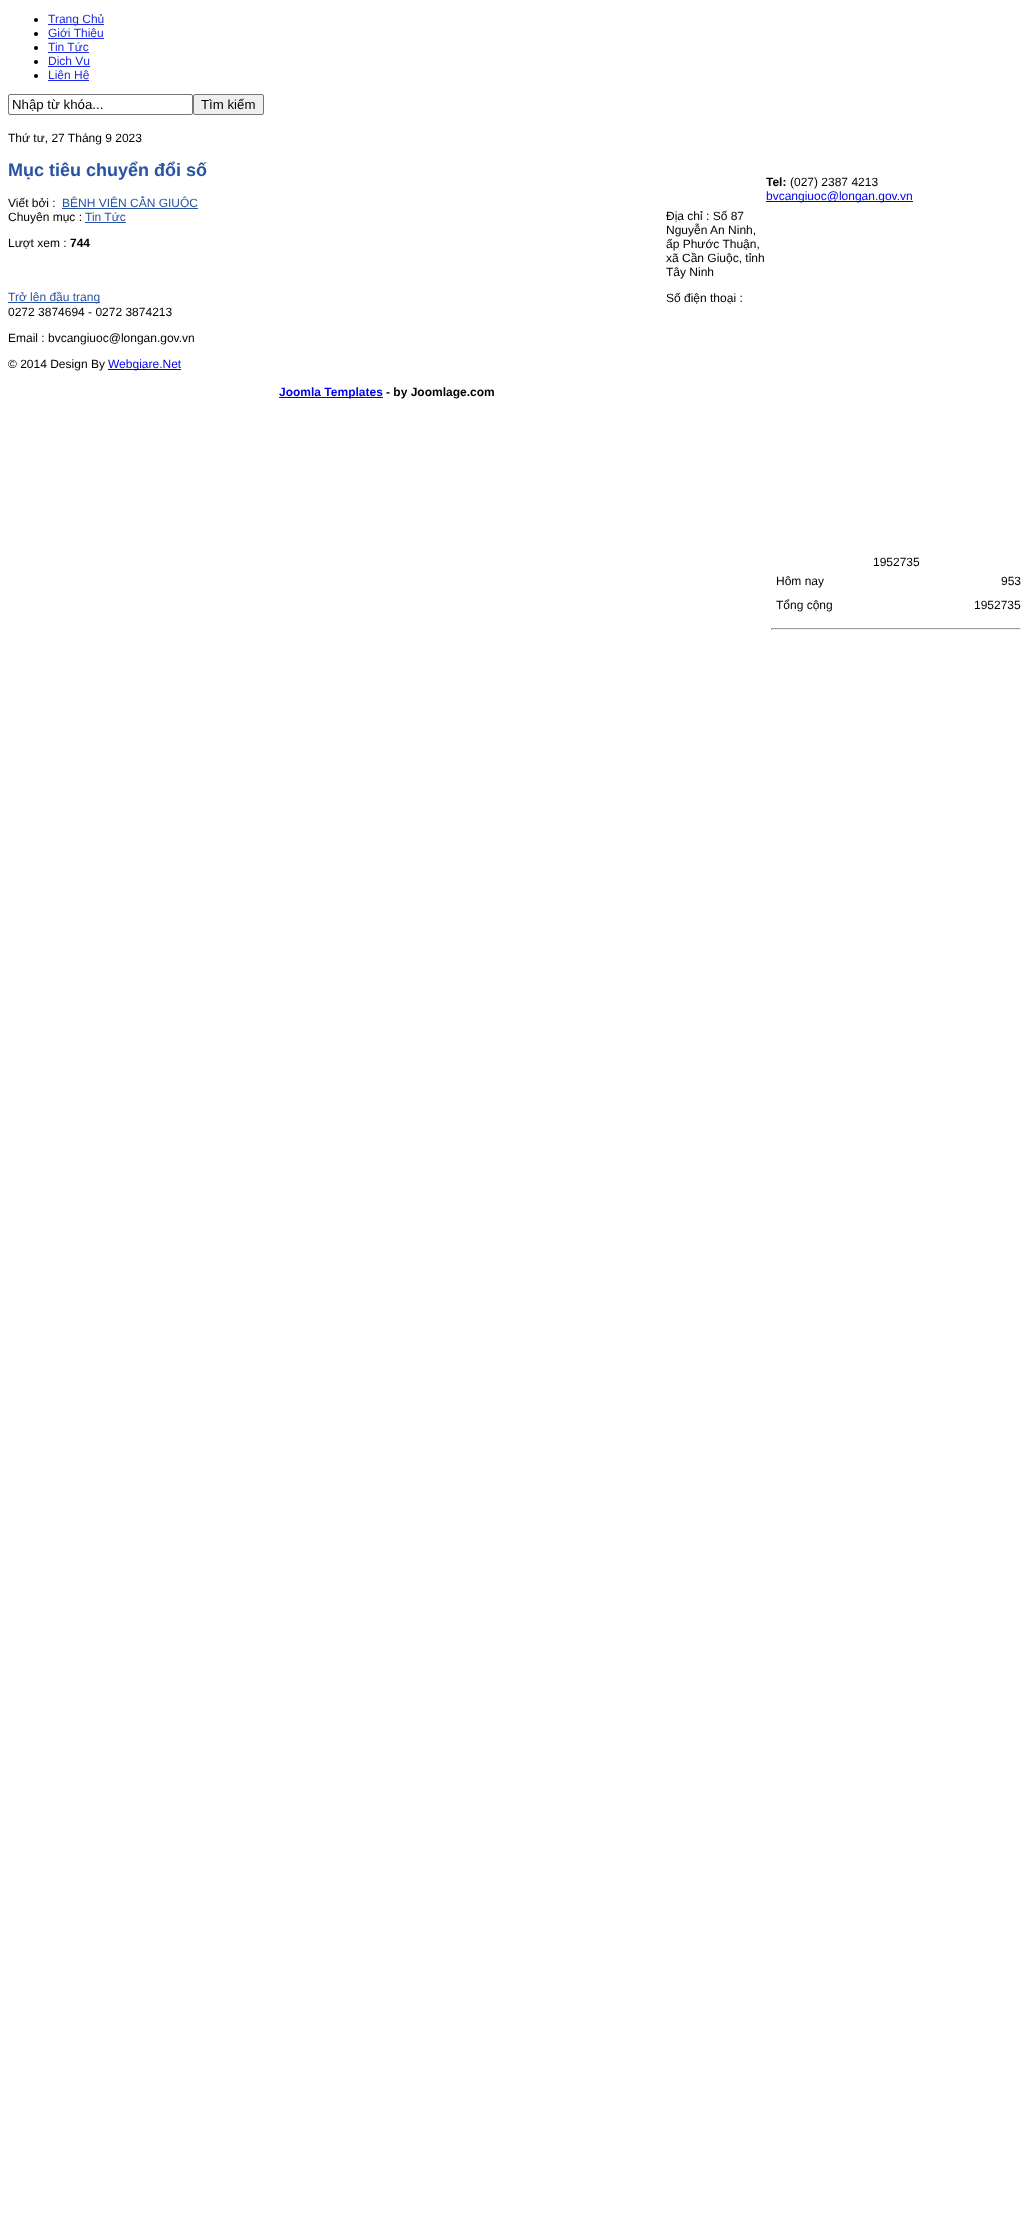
async function draw(canvas) {
	canvas.width = 1034;
	canvas.height = 2221;
	const c = canvas.getContext('2d');
	c.miterLimit = 4;
	c.fontKerning = 'normal';

	c.fillStyle = '#fff';
	c.fillRect(0, 0, 1034, 2221);
	c.fillStyle = '#000';
	c.beginPath();
	c.arc(36, 20, 2, 0, 2 * Math.PI);
	c.fill();
	c.fillStyle = '#1f2ce0';
	c.fillRect(48, 24, 56, 1);
	c.font = '12px Liberation Sans';
	c.fillText('Trang Chủ', 48, 23);
	c.fillStyle = '#000';
	c.beginPath();
	c.arc(36, 34, 2, 0, 2 * Math.PI);
	c.fill();
	c.fillStyle = '#1f2ce0';
	c.fillRect(48, 38, 56, 1);
	c.fillText('Giới Thiệu', 48, 37);
	c.fillStyle = '#000';
	c.beginPath();
	c.arc(36, 48, 2, 0, 2 * Math.PI);
	c.fill();
	c.fillStyle = '#1f2ce0';
	c.fillText('Tin Tức', 48, 51);
	c.fillRect(48, 52, 41, 1);
	c.fillStyle = '#000';
	c.beginPath();
	c.arc(36, 62, 2, 0, 2 * Math.PI);
	c.fill();
	c.fillStyle = '#1f2ce0';
	c.fillRect(48, 66, 42, 1);
	c.fillText('Dịch Vụ', 48, 65);
	c.fillStyle = '#000';
	c.beginPath();
	c.arc(36, 76, 2, 0, 2 * Math.PI);
	c.fill();
	c.fillStyle = '#1f2ce0';
	c.fillRect(48, 80, 41, 1);
	c.fillText('Liên Hệ', 48, 79);
	c.beginPath();
	c.roundRect(8.5, 94.5, 184, 20, 1.5);
	c.strokeStyle = '#767676';
	c.stroke();
	c.font = '13.25px Liberation Sans';
	c.fillStyle = '#000';
	c.fillText('Nhập từ khóa...', 12, 109);
	c.fillStyle = '#efefef';
	c.beginPath();
	c.roundRect(193.5, 94.5, 70, 20, 1.5);
	c.fill();
	c.stroke();
	c.fillStyle = '#000';
	c.fillText('Tìm kiếm', 201, 109);
	c.font = '12px Liberation Sans';
	c.fillText('Thứ tư, 27 Tháng 9 2023', 8, 142);
	c.font = 'bold 18px Liberation Sans';
	c.fillStyle = '#2853a3';
	c.fillText('Mục tiêu chuyển đổi số', 8, 176);
	c.font = '12px Liberation Sans';
	c.fillStyle = '#000';
	c.fillText('Viết bởi :', 8, 207);
	c.fillStyle = '#2853a3';
	c.fillRect(62, 208, 136, 1);
	c.fillText('BỆNH VIỆN CẦN GIUỘC', 62, 207);
	c.fillStyle = '#000';
	c.fillText('Chuyên mục :', 8, 221);
	c.fillStyle = '#2853a3';
	c.fillText('Tin Tức', 85, 221);
	c.fillRect(85, 222, 41, 1);
	c.fillStyle = '#000';
	c.fillText('Lượt xem :', 8, 247);
	c.font = 'bold 12px Liberation Sans';
	c.fillText('744', 70, 247);
	c.fillStyle = '#2853a3';
	c.fillRect(8, 302, 92, 1);
	c.font = '12px Liberation Sans';
	c.fillText('Trở lên đầu trang', 8, 301);
	c.font = 'bold 12px Liberation Sans';
	c.fillStyle = '#000';
	c.fillText('Tel:', 766, 186);
	c.font = '12px Liberation Sans';
	c.fillText('(027) 2387 4213', 790, 186);
	c.fillStyle = '#00e';
	c.fillRect(766, 201, 147, 1);
	c.fillText('bvcangiuoc@longan.gov.vn', 766, 200);
	c.fillStyle = '#000';
	for (const [text, x, y] of [
		['1952735', 873, 566],
		['Hôm nay', 776, 585],
		['Tổng cộng', 776, 609],
		['953', 1001, 585],
		['1952735', 974, 609],
	]) {
		c.fillText(text, x, y);
	}
	for (const [x, y, w, h, color] of [
		[771, 628, 250, 1, '#9f9f9f'],
		[1020, 628, 1, 2, '#eee'],
		[771, 629, 250, 1, '#eee'],
		[771, 628, 1, 2, '#9f9f9f'],
	]) {
		c.fillStyle = color;
		c.fillRect(x, y, w, h);
	}
	c.fillStyle = '#000';
	for (const [text, x, y] of [
		['Địa chỉ : Số 87', 666, 220],
		['Nguyễn An Ninh,', 666, 234],
		['ấp Phước Thuận,', 666, 248],
		['xã Cần Giuộc, tỉnh', 666, 262],
		['Tây Ninh', 666, 276],
		['Số điện thoại :', 666, 302],
		['0272 3874694 - 0272 3874213', 8, 316],
		['Email : bvcangiuoc@longan.gov.vn', 8, 342],
		['© 2014 Design By', 8, 368],
	]) {
		c.fillText(text, x, y);
	}
	c.fillStyle = '#00e';
	c.fillRect(108, 369, 73, 1);
	c.fillText('Webgiare.Net', 108, 368);
	c.fillRect(279, 397, 104, 1);
	c.font = 'bold 12px Liberation Sans';
	c.fillText('Joomla Templates', 279, 396);
	c.fillStyle = '#000';
	c.fillText('- by Joomlage.com', 386, 396);
}

draw(document.querySelector('canvas'));
